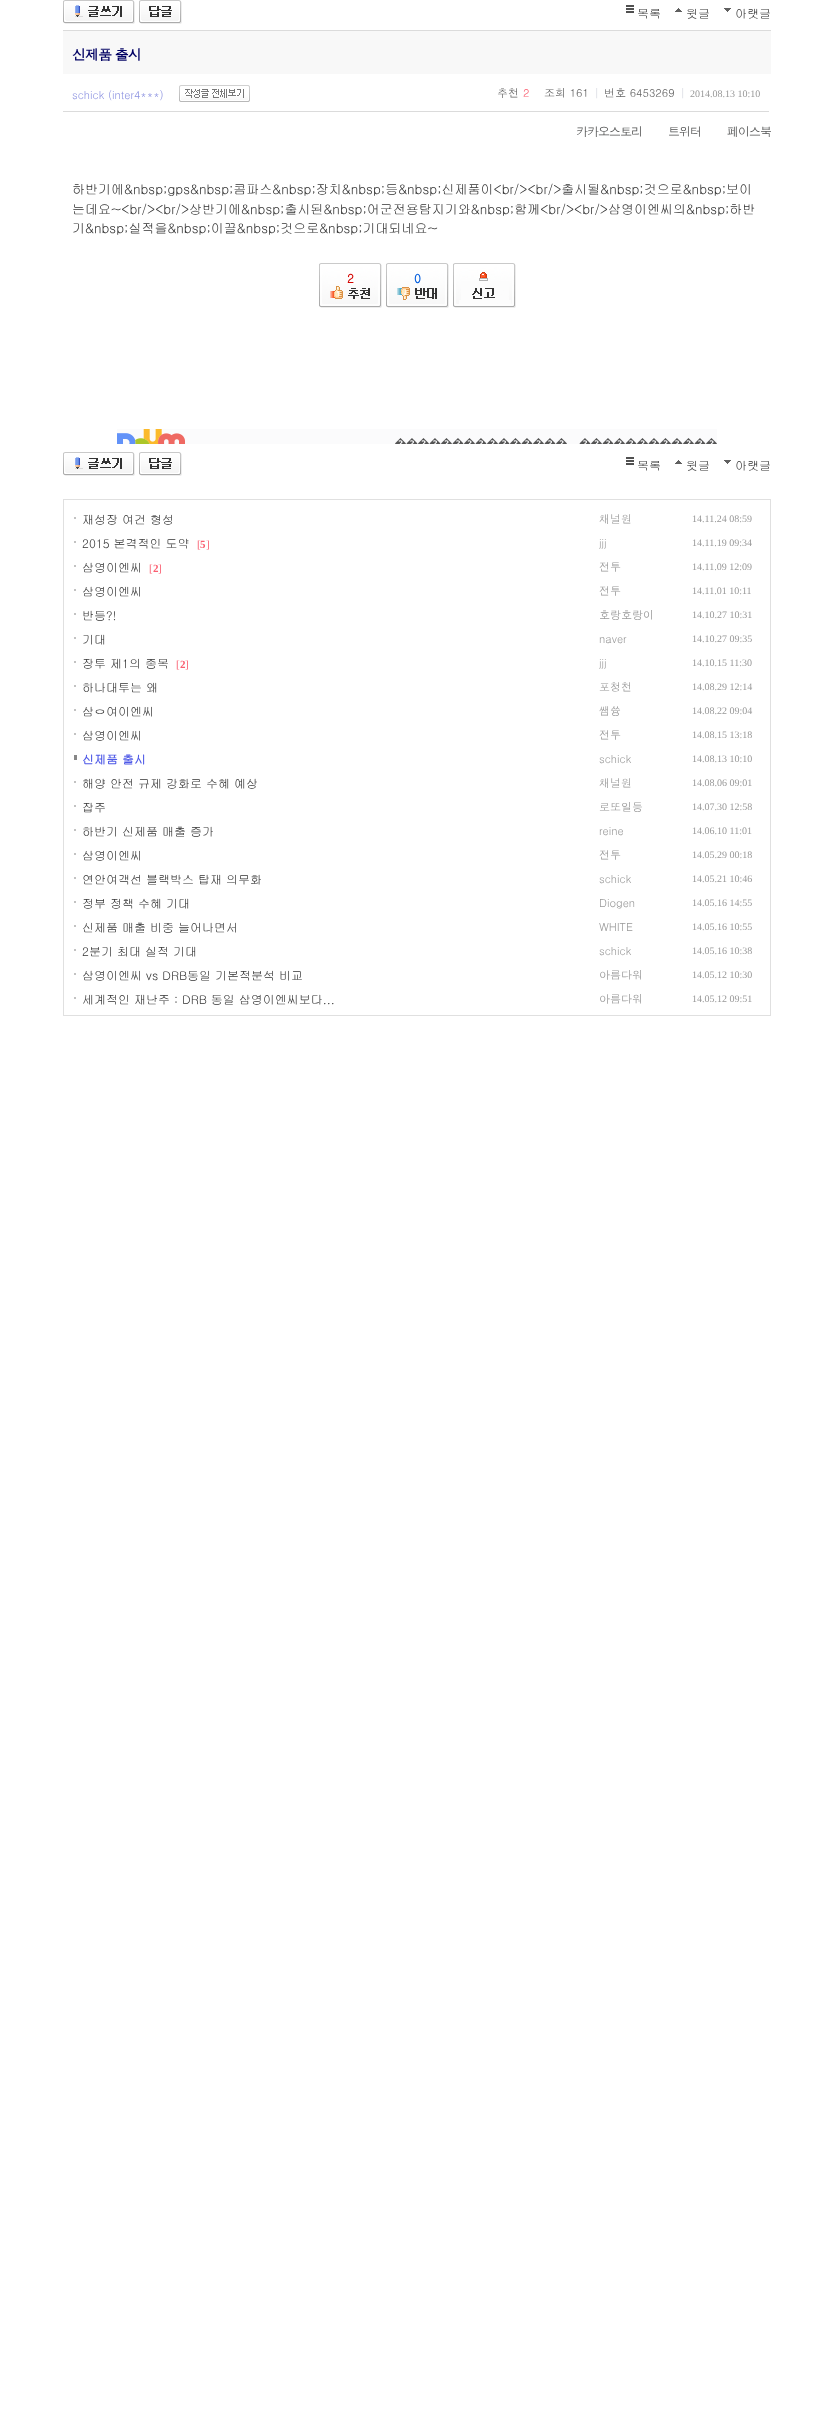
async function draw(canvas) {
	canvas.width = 834;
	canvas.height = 2419;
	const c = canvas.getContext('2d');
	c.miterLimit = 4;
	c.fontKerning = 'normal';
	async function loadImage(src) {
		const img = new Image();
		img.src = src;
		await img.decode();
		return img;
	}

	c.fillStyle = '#fff';
	c.fillRect(0, 0, 834, 2419);
	c.drawImage(await loadImage('img1.png'), 63, 0, 72, 24);
	c.drawImage(await loadImage('img2.png'), 139, 0, 43, 24);
	c.drawImage(await loadImage('img3.png'), 626, 5, 8, 8);
	c.font = '12px Gulim';
	c.fillStyle = '#333';
	c.fillText('목록', 637, 18);
	c.drawImage(await loadImage('img4.png'), 675, 8, 7, 4);
	c.fillText('윗글', 686, 18);
	c.drawImage(await loadImage('img5.png'), 724, 8, 7, 4);
	c.fillText('아랫글', 735, 18);
	c.fillStyle = '#f8f8f8';
	c.fillRect(63, 31, 708, 43);
	c.fillStyle = '#dbdbdb';
	c.fillRect(63, 30, 708, 1);
	c.letterSpacing = '-1px';
	c.font = 'bold 14px Dotum';
	c.fillStyle = '#000063';
	c.fillText('신제품 출시', 72, 60);
	c.fillStyle = '#dbdbdb';
	c.fillRect(63, 111, 706, 1);
	c.letterSpacing = '0px';
	c.font = '11px Dotum';
	c.fillStyle = '#8d93e1';
	c.fillText('schick (inter4***)', 72, 99);
	c.drawImage(await loadImage('img6.png'), 179, 85, 71, 17);
	c.fillStyle = '#666';
	c.fillText('추천', 497, 97);
	c.fillStyle = '#fa5f71';
	c.fillText('2', 523, 97);
	c.fillStyle = '#666';
	c.fillText('조회 161', 544, 97);
	c.fillStyle = '#d7d8e1';
	c.fillText('|', 594, 97);
	c.fillStyle = '#666';
	c.fillText('번호 6453269', 604, 97);
	c.fillStyle = '#d7d8e1';
	c.fillText('|', 680, 97);
	c.font = '10px Liberation Serif';
	c.fillStyle = '#999';
	c.fillText('2014.08.13 10:10', 690, 97);
	c.letterSpacing = '-1px';
	c.font = '12px Dotum';
	c.fillStyle = '#525353';
	for (const [text, x, y] of [
		['카카오스토리', 576, 136],
		['트위터', 668, 136],
		['페이스북', 727, 136],
	]) {
		c.fillText(text, x, y);
	}
	c.letterSpacing = '0px';
	c.font = '13px Gulim';
	c.fillStyle = '#333';
	for (const [text, x, y] of [
		['하반기에&nbsp;gps&nbsp;콤파스&nbsp;장치&nbsp;등&nbsp;신제품이<br/><br/>출시될&nbsp;것으로&nbsp;보이', 72, 194],
		['는데요~<br/><br/>상반기에&nbsp;출시된&nbsp;어군전용탐지기와&nbsp;함께<br/><br/>삼영이엔씨의&nbsp;하반', 72, 214],
		['기&nbsp;실적을&nbsp;이끌&nbsp;것으로&nbsp;기대되네요~', 72, 233],
	]) {
		c.fillText(text, x, y);
	}
	c.drawImage(await loadImage('img7.png'), 319, 263, 63, 45);
	c.font = 'bold 12px Gulim';
	c.fillStyle = '#d40400';
	c.fillText('2', 347, 283);
	c.drawImage(await loadImage('img8.png'), 386, 263, 63, 45);
	c.fillStyle = '#005dde';
	c.fillText('0', 414, 283);
	c.drawImage(await loadImage('img9.png'), 453, 263, 63, 45);
	c.drawImage(await loadImage('img10.png'), 117, 429, 600, 15);
	c.drawImage(await loadImage('img1.png'), 63, 452, 72, 24);
	c.drawImage(await loadImage('img2.png'), 139, 452, 43, 24);
	c.drawImage(await loadImage('img3.png'), 626, 457, 8, 8);
	c.font = '12px Gulim';
	c.fillStyle = '#333';
	c.fillText('목록', 637, 470);
	c.drawImage(await loadImage('img4.png'), 675, 460, 7, 4);
	c.fillText('윗글', 686, 470);
	c.drawImage(await loadImage('img5.png'), 724, 460, 7, 4);
	c.fillText('아랫글', 735, 470);
	c.strokeStyle = '#e0e0e0';
	c.strokeRect(63.5, 499.5, 707, 516);
	c.fillStyle = '#c2c2c2';
	c.fillRect(74, 517, 2, 2);
	c.fillStyle = '#333';
	c.fillText('재성장 여건 형성', 82, 524);
	c.font = '11px Dotum';
	c.fillStyle = '#999';
	c.fillText('채널원', 599, 523);
	c.font = '10px Liberation Serif';
	c.fillText('14.11.24 08:59', 692, 522);
	c.fillStyle = '#c2c2c2';
	c.fillRect(74, 541, 2, 2);
	c.font = '12px Gulim';
	c.fillStyle = '#333';
	c.fillText('2015 본격적인 도약', 82, 548);
	c.font = '11px Liberation Serif';
	c.fillStyle = '#fa5f71';
	c.fillText('[', 197, 548);
	c.font = 'bold 11px Liberation Serif';
	c.fillText('5', 200, 548);
	c.font = '11px Liberation Serif';
	c.fillText(']', 206, 548);
	c.font = '11px Dotum';
	c.fillStyle = '#999';
	c.fillText('jjj', 599, 547);
	c.font = '10px Liberation Serif';
	c.fillText('14.11.19 09:34', 692, 546);
	c.fillStyle = '#c2c2c2';
	c.fillRect(74, 565, 2, 2);
	c.font = '12px Gulim';
	c.fillStyle = '#333';
	c.fillText('삼영이엔씨', 82, 572);
	c.font = '11px Liberation Serif';
	c.fillStyle = '#fa5f71';
	c.fillText('[', 149, 572);
	c.font = 'bold 11px Liberation Serif';
	c.fillText('2', 153, 572);
	c.font = '11px Liberation Serif';
	c.fillText(']', 158, 572);
	c.font = '11px Dotum';
	c.fillStyle = '#999';
	c.fillText('전투', 599, 571);
	c.font = '10px Liberation Serif';
	c.fillText('14.11.09 12:09', 692, 570);
	c.fillStyle = '#c2c2c2';
	c.fillRect(74, 589, 2, 2);
	c.font = '12px Gulim';
	c.fillStyle = '#333';
	c.fillText('삼영이엔씨', 82, 596);
	c.font = '11px Dotum';
	c.fillStyle = '#999';
	c.fillText('전투', 599, 595);
	c.font = '10px Liberation Serif';
	c.fillText('14.11.01 10:11', 692, 594);
	c.fillStyle = '#c2c2c2';
	c.fillRect(74, 613, 2, 2);
	c.font = '12px Gulim';
	c.fillStyle = '#333';
	c.fillText('반등?!', 82, 620);
	c.font = '11px Dotum';
	c.fillStyle = '#999';
	c.fillText('호랑호랑이', 599, 619);
	c.font = '10px Liberation Serif';
	c.fillText('14.10.27 10:31', 692, 618);
	c.fillStyle = '#c2c2c2';
	c.fillRect(74, 637, 2, 2);
	c.font = '12px Gulim';
	c.fillStyle = '#333';
	c.fillText('기대', 82, 644);
	c.font = '11px Dotum';
	c.fillStyle = '#999';
	c.fillText('naver', 599, 643);
	c.font = '10px Liberation Serif';
	c.fillText('14.10.27 09:35', 692, 642);
	c.fillStyle = '#c2c2c2';
	c.fillRect(74, 661, 2, 2);
	c.font = '12px Gulim';
	c.fillStyle = '#333';
	c.fillText('장투 제1의 종목', 82, 668);
	c.font = '11px Liberation Serif';
	c.fillStyle = '#fa5f71';
	c.fillText('[', 176, 668);
	c.font = 'bold 11px Liberation Serif';
	c.fillText('2', 180, 668);
	c.font = '11px Liberation Serif';
	c.fillText(']', 185, 668);
	c.font = '11px Dotum';
	c.fillStyle = '#999';
	c.fillText('jjj', 599, 667);
	c.font = '10px Liberation Serif';
	c.fillText('14.10.15 11:30', 692, 666);
	c.fillStyle = '#c2c2c2';
	c.fillRect(74, 685, 2, 2);
	c.font = '12px Gulim';
	c.fillStyle = '#333';
	c.fillText('하나대투는 왜', 82, 692);
	c.font = '11px Dotum';
	c.fillStyle = '#999';
	c.fillText('포청천', 599, 691);
	c.font = '10px Liberation Serif';
	c.fillText('14.08.29 12:14', 692, 690);
	c.fillStyle = '#c2c2c2';
	c.fillRect(74, 709, 2, 2);
	c.font = '12px Gulim';
	c.fillStyle = '#333';
	c.fillText('삼ㅇ여이엔씨', 82, 716);
	c.font = '11px Dotum';
	c.fillStyle = '#999';
	c.fillText('쌤쓩', 599, 715);
	c.font = '10px Liberation Serif';
	c.fillText('14.08.22 09:04', 692, 714);
	c.fillStyle = '#c2c2c2';
	c.fillRect(74, 733, 2, 2);
	c.font = '12px Gulim';
	c.fillStyle = '#333';
	c.fillText('삼영이엔씨', 82, 740);
	c.font = '11px Dotum';
	c.fillStyle = '#999';
	c.fillText('전투', 599, 739);
	c.font = '10px Liberation Serif';
	c.fillText('14.08.15 13:18', 692, 738);
	c.fillStyle = '#878787';
	c.fillRect(74, 755, 3, 5);
	c.font = 'bold 12px Gulim';
	c.fillStyle = '#4e59e7';
	c.fillText('신제품 출시', 82, 764);
	c.font = '11px Dotum';
	c.fillStyle = '#999';
	c.fillText('schick', 599, 763);
	c.font = '10px Liberation Serif';
	c.fillText('14.08.13 10:10', 692, 762);
	c.fillStyle = '#c2c2c2';
	c.fillRect(74, 781, 2, 2);
	c.font = '12px Gulim';
	c.fillStyle = '#333';
	c.fillText('해양 안전 규제 강화로 수혜 예상', 82, 788);
	c.font = '11px Dotum';
	c.fillStyle = '#999';
	c.fillText('채널원', 599, 787);
	c.font = '10px Liberation Serif';
	c.fillText('14.08.06 09:01', 692, 786);
	c.fillStyle = '#c2c2c2';
	c.fillRect(74, 805, 2, 2);
	c.font = '12px Gulim';
	c.fillStyle = '#333';
	c.fillText('잡주', 82, 812);
	c.font = '11px Dotum';
	c.fillStyle = '#999';
	c.fillText('로또일등', 599, 811);
	c.font = '10px Liberation Serif';
	c.fillText('14.07.30 12:58', 692, 810);
	c.fillStyle = '#c2c2c2';
	c.fillRect(74, 829, 2, 2);
	c.font = '12px Gulim';
	c.fillStyle = '#333';
	c.fillText('하반기 신제품 매출 증가', 82, 836);
	c.font = '11px Dotum';
	c.fillStyle = '#999';
	c.fillText('reine', 599, 835);
	c.font = '10px Liberation Serif';
	c.fillText('14.06.10 11:01', 692, 834);
	c.fillStyle = '#c2c2c2';
	c.fillRect(74, 853, 2, 2);
	c.font = '12px Gulim';
	c.fillStyle = '#333';
	c.fillText('삼영이엔씨', 82, 860);
	c.font = '11px Dotum';
	c.fillStyle = '#999';
	c.fillText('전투', 599, 859);
	c.font = '10px Liberation Serif';
	c.fillText('14.05.29 00:18', 692, 858);
	c.fillStyle = '#c2c2c2';
	c.fillRect(74, 877, 2, 2);
	c.font = '12px Gulim';
	c.fillStyle = '#333';
	c.fillText('연안여객선 블랙박스 탑재 의무화', 82, 884);
	c.font = '11px Dotum';
	c.fillStyle = '#999';
	c.fillText('schick', 599, 883);
	c.font = '10px Liberation Serif';
	c.fillText('14.05.21 10:46', 692, 882);
	c.fillStyle = '#c2c2c2';
	c.fillRect(74, 901, 2, 2);
	c.font = '12px Gulim';
	c.fillStyle = '#333';
	c.fillText('정부 정책 수혜 기대', 82, 908);
	c.font = '11px Dotum';
	c.fillStyle = '#999';
	c.fillText('Diogen', 599, 907);
	c.font = '10px Liberation Serif';
	c.fillText('14.05.16 14:55', 692, 906);
	c.fillStyle = '#c2c2c2';
	c.fillRect(74, 925, 2, 2);
	c.font = '12px Gulim';
	c.fillStyle = '#333';
	c.fillText('신제품 매출 비중 늘어나면서', 82, 932);
	c.font = '11px Dotum';
	c.fillStyle = '#999';
	c.fillText('WHITE', 599, 931);
	c.font = '10px Liberation Serif';
	c.fillText('14.05.16 10:55', 692, 930);
	c.fillStyle = '#c2c2c2';
	c.fillRect(74, 949, 2, 2);
	c.font = '12px Gulim';
	c.fillStyle = '#333';
	c.fillText('2분기 최대 실적 기대', 82, 956);
	c.font = '11px Dotum';
	c.fillStyle = '#999';
	c.fillText('schick', 599, 955);
	c.font = '10px Liberation Serif';
	c.fillText('14.05.16 10:38', 692, 954);
	c.fillStyle = '#c2c2c2';
	c.fillRect(74, 973, 2, 2);
	c.font = '12px Gulim';
	c.fillStyle = '#333';
	c.fillText('삼영이엔씨 vs DRB동일 기본적분석 비교', 82, 980);
	c.font = '11px Dotum';
	c.fillStyle = '#999';
	c.fillText('아름다워', 599, 979);
	c.font = '10px Liberation Serif';
	c.fillText('14.05.12 10:30', 692, 978);
	c.fillStyle = '#c2c2c2';
	c.fillRect(74, 997, 2, 2);
	c.font = '12px Gulim';
	c.fillStyle = '#333';
	c.fillText('세계적인 재난주 : DRB 동일 삼영이엔씨보다...', 82, 1004);
	c.font = '11px Dotum';
	c.fillStyle = '#999';
	c.fillText('아름다워', 599, 1003);
	c.font = '10px Liberation Serif';
	c.fillText('14.05.12 09:51', 692, 1002);
}

draw(document.querySelector('canvas'));
